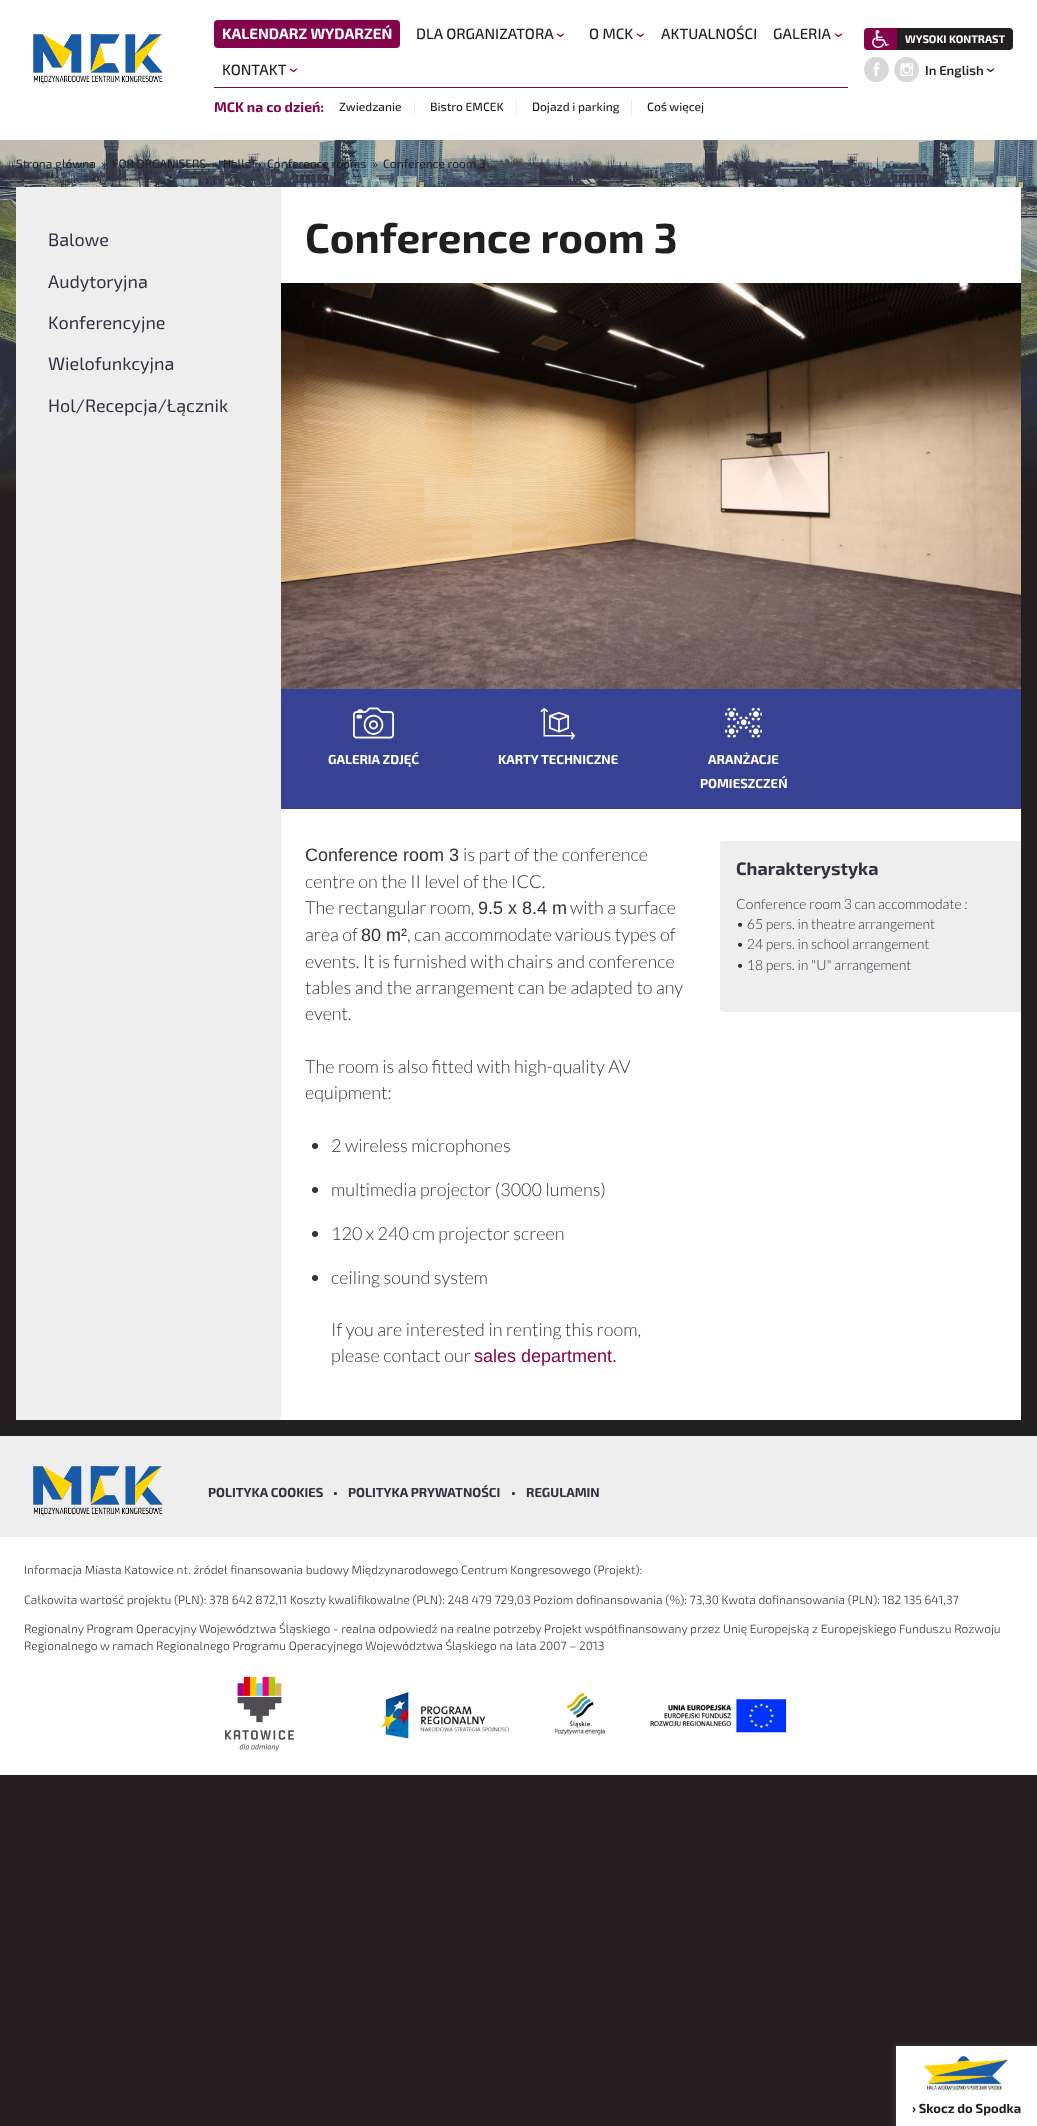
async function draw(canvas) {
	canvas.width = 1037;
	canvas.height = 2126;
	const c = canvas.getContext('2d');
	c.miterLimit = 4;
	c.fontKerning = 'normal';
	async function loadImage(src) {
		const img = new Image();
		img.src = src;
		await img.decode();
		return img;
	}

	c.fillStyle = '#221f20';
	c.fillRect(0, 0, 1037, 2126);
	c.drawImage(await loadImage('img1.png'), 0, 140, 1037, 355);
	c.fillStyle = '#fff';
	c.fillRect(0, 0, 1037, 140);
	c.drawImage(await loadImage('img2.png'), 33, 34, 130, 50);
	c.fillStyle = '#84044b';
	c.beginPath();
	c.roundRect(214, 20, 186, 28, 4);
	c.fill();
	c.font = 'bold 15px "Exo 2"';
	c.fillStyle = '#fff';
	c.fillText('KALENDARZ WYDARZEŃ', 222, 39);
	c.font = '500 15px "Exo 2"';
	c.fillStyle = '#201f1f';
	c.fillText('DLA ORGANIZATORA', 416, 39);
	c.drawImage(await loadImage('img3.png'), 556, 33, 9, 5);
	c.fillText('O MCK', 589, 39);
	c.drawImage(await loadImage('img3.png'), 636, 33, 9, 5);
	c.fillText('AKTUALNOŚCI', 661, 39);
	c.fillText('GALERIA', 773, 39);
	c.drawImage(await loadImage('img3.png'), 834, 33, 9, 5);
	c.fillText('KONTAKT', 222, 75);
	c.drawImage(await loadImage('img3.png'), 289, 68, 9, 5);
	c.fillStyle = '#84044b';
	c.fillRect(214, 87, 634, 1);
	c.font = 'bold 14px "Exo 2"';
	c.fillText('MCK na co dzień:', 214, 112);
	c.fillStyle = '#eee';
	c.fillRect(414, 99, 1, 16);
	c.font = '500 12px "Exo 2"';
	c.fillStyle = '#201f1f';
	c.fillText('Zwiedzanie', 339, 111);
	c.fillStyle = '#eee';
	c.fillRect(516, 99, 1, 16);
	c.fillStyle = '#201f1f';
	c.fillText('Bistro EMCEK', 430, 111);
	c.fillStyle = '#eee';
	c.fillRect(631, 99, 1, 16);
	c.fillStyle = '#201f1f';
	c.fillText('Dojazd i parking', 532, 111);
	c.fillText('Coś więcej', 647, 111);
	c.fillStyle = '#84044b';
	c.beginPath();
	c.roundRect(864, 28, 33, 22, [4, 0, 0, 4]);
	c.fill();
	c.drawImage(await loadImage('img4.png'), 872, 30, 17, 18);
	c.fillStyle = '#221f20';
	c.beginPath();
	c.roundRect(897, 28, 116, 22, [0, 4, 4, 0]);
	c.fill();
	c.font = 'bold 11px "Exo 2"';
	c.fillStyle = '#fff';
	c.fillText('WYSOKI KONTRAST', 905, 43);
	c.drawImage(await loadImage('img5.png'), 864, 57, 25, 25);
	c.drawImage(await loadImage('img6.png'), 894, 57, 25, 25);
	c.drawImage(await loadImage('img7.png'), 986, 68, 9, 5);
	c.font = '600 13px "Exo 2"';
	c.fillStyle = '#201f1f';
	c.fillText('In English', 925, 75);
	c.font = '12px "Exo 2"';
	for (const [text, x, y] of [
		['Strona główna', 16, 168],
		['»', 101, 168],
		['FOR ORGANISERS', 112, 168],
		['»', 212, 168],
		['Halls', 223, 168],
		['»', 256, 168],
		['Conference rooms', 267, 168],
		['»', 372, 168],
		['Conference room 3', 383, 168],
	]) {
		c.fillText(text, x, y);
	}
	c.fillStyle = '#eee';
	c.fillRect(16, 187, 265, 1233);
	c.font = '18px "Exo 2"';
	c.fillStyle = '#31313f';
	for (const [text, x, y] of [
		['Balowe', 48, 246],
		['Audytoryjna', 48, 288],
		['Konferencyjne', 48, 329],
		['Wielofunkcyjna', 48, 370],
		['Hol/Recepcja/Łącznik', 48, 412],
	]) {
		c.fillText(text, x, y);
	}
	c.fillStyle = '#fff';
	c.fillRect(281, 187, 740, 1233);
	c.font = 'bold 42px "Exo 2"';
	c.fillStyle = '#201f1f';
	c.fillText('Conference room 3', 305, 253);
	c.drawImage(await loadImage('img8.png'), 281, 283, 740, 406);
	c.fillStyle = '#384294';
	c.fillRect(281, 689, 740, 120);
	c.drawImage(await loadImage('img9.png'), 353, 707, 41, 32);
	c.font = 'bold 13px "Exo 2"';
	c.fillStyle = '#fff';
	c.fillText('GALERIA ZDJĘĆ', 328, 764);
	c.drawImage(await loadImage('img10.png'), 540, 708, 35, 32);
	c.fillText('KARTY TECHNICZNE', 498, 764);
	c.drawImage(await loadImage('img11.png'), 725, 708, 37, 30);
	c.fillText('ARANŻACJE', 708, 764);
	c.fillText('POMIESZCZEŃ', 700, 788);
	c.font = '18px Liberation Sans';
	c.fillStyle = '#31313f';
	c.fillText('Conference room 3', 305, 861);
	c.font = '300 18px Lato';
	for (const [text, x, y] of [
		['is part of the conference', 463, 861],
		['centre on the II level of the ICC.', 305, 888],
		['The rectangular room,', 305, 914],
	]) {
		c.fillText(text, x, y);
	}
	c.font = '18px Liberation Sans';
	c.fillText('9.5 x 8.4 m', 478, 914);
	c.font = '300 18px Lato';
	c.fillText('with a surface', 570, 914);
	c.fillText('area of', 305, 941);
	c.font = '18px Liberation Sans';
	c.fillText('80 m²', 361, 941);
	c.font = '300 18px Lato';
	for (const [text, x, y] of [
		[', can accommodate various types of', 407, 941],
		['events. It is furnished with chairs and conference', 305, 968],
		['tables and the arrangement can be adapted to any', 305, 994],
		['event.', 305, 1020],
		['The room is also fitted with high-quality AV', 305, 1073],
		['equipment:', 305, 1099],
	]) {
		c.fillText(text, x, y);
	}
	c.beginPath();
	c.arc(315, 1146, 3, 0, 2 * Math.PI);
	c.fill();
	c.fillText('2 wireless microphones', 331, 1152);
	c.beginPath();
	c.arc(315, 1190, 3, 0, 2 * Math.PI);
	c.fill();
	c.fillText('multimedia projector (3000 lumens)', 331, 1196);
	c.beginPath();
	c.arc(315, 1234, 3, 0, 2 * Math.PI);
	c.fill();
	c.fillText('120 x 240 cm projector screen', 331, 1240);
	c.beginPath();
	c.arc(315, 1278, 3, 0, 2 * Math.PI);
	c.fill();
	for (const [text, x, y] of [
		['ceiling sound system', 331, 1284],
		['If you are interested in renting this room,', 331, 1336],
		['please contact our', 331, 1362],
	]) {
		c.fillText(text, x, y);
	}
	c.font = '18px Liberation Sans';
	c.fillStyle = '#84044b';
	c.fillText('sales department', 474, 1362);
	c.fillStyle = '#31313f';
	c.fillText('.', 612, 1362);
	c.fillStyle = '#eee';
	c.beginPath();
	c.roundRect(720, 841, 301, 171, [4, 0, 0, 4]);
	c.fill();
	c.font = 'bold 18px "Exo 2"';
	c.fillStyle = '#31313f';
	c.fillText('Charakterystyka', 736, 875);
	c.font = '300 14px Lato';
	for (const [text, x, y] of [
		['Conference room 3 can accommodate :', 736, 909],
		['• 65 pers. in theatre arrangement', 736, 929],
		['• 24 pers. in school arrangement', 736, 949],
		['• 18 pers. in "U" arrangement', 736, 970],
	]) {
		c.fillText(text, x, y);
	}
	c.fillStyle = '#fff';
	c.fillRect(0, 1537, 1037, 238);
	c.fillStyle = '#eee';
	c.fillRect(0, 1436, 1037, 101);
	c.drawImage(await loadImage('img12.png'), 33, 1466, 130, 50);
	c.font = 'bold 13px "Exo 2"';
	c.fillStyle = '#31313f';
	c.fillText('POLITYKA COOKIES', 208, 1497);
	c.fillStyle = '#333';
	c.fillText('•', 333, 1497);
	c.fillStyle = '#31313f';
	c.fillText('POLITYKA PRYWATNOŚCI', 348, 1497);
	c.fillStyle = '#333';
	c.fillText('•', 511, 1497);
	c.fillStyle = '#31313f';
	c.fillText('REGULAMIN', 526, 1497);
	c.font = '300 12px "Exo 2"';
	for (const [text, x, y] of [
		['Informacja Miasta Katowice nt. źródeł finansowania budowy Międzynarodowego Centrum Kongresowego (Projekt):', 24, 1574],
		['Całkowita wartość projektu (PLN): 378 642 872,11 Koszty kwalifikowalne (PLN): 248 479 729,03 Poziom dofinansowania (%): 73,30 Kwota dofinansowania (PLN): 182 135 641,37', 24, 1604],
		['Regionalny Program Operacyjny Województwa Śląskiego - realna odpowiedź na realne potrzeby Projekt współfinansowany przez Unię Europejską z Europejskiego Funduszu Rozwoju', 24, 1633],
		['Regionalnego w ramach Regionalnego Programu Operacyjnego Województwa Śląskiego na lata 2007 – 2013', 24, 1650],
	]) {
		c.fillText(text, x, y);
	}
	c.drawImage(await loadImage('img13.png'), 225, 1677, 69, 74);
	c.drawImage(await loadImage('img14.png'), 379, 1690, 408, 49);
	c.fillStyle = '#353535cc';
	c.filter = 'blur(2px)';
	c.beginPath();
	c.rect(894, 2044, 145, 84);
	c.fill();
	c.filter = 'none';
	c.fillStyle = '#fff';
	c.fillRect(896, 2046, 141, 80);
	c.drawImage(await loadImage('img15.png'), 924, 2056, 84, 35);
	c.font = 'bold 13px "Exo 2"';
	c.fillStyle = '#201f1f';
	c.fillText('› Skocz do Spodka', 912, 2113);
}

draw(document.querySelector('canvas'));
